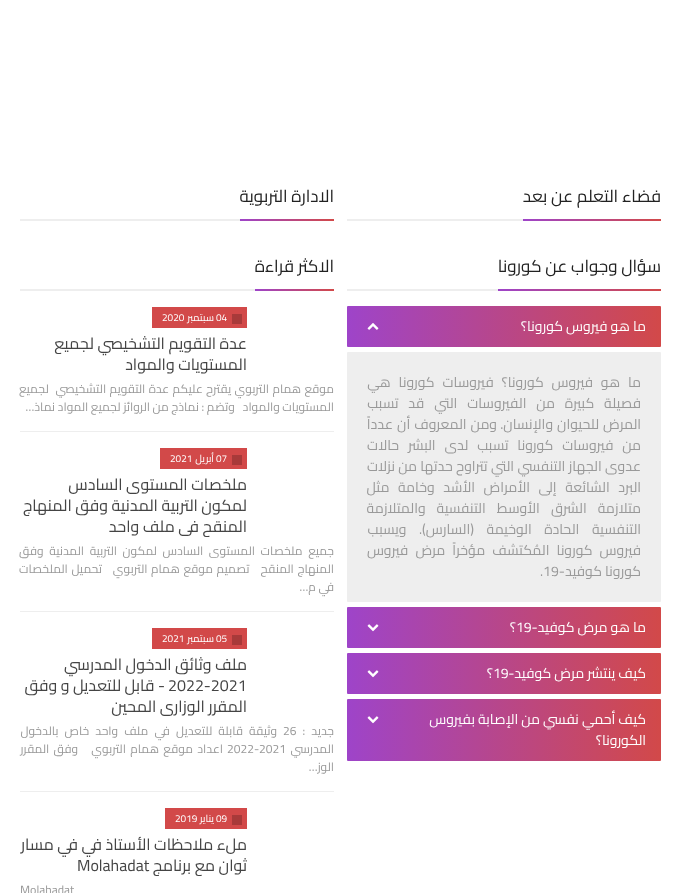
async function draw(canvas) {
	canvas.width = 681;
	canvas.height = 893;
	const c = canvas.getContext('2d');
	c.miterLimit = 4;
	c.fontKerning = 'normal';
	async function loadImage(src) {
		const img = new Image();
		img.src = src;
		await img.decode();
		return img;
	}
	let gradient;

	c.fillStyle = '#fff';
	c.fillRect(0, 0, 681, 893);
	c.fillStyle = '#eee';
	c.fillRect(347, 219, 176, 2);
	c.direction = 'rtl';
	c.font = '17px Cairo';
	c.fillStyle = '#222';
	c.fillText('فضاء التعلم عن بعد', 661, 202);
	gradient = c.createLinearGradient(661, 220, 523, 220);
	gradient.addColorStop(0, '#d24949');
	gradient.addColorStop(1, '#9e44c9');
	c.fillStyle = gradient;
	c.fillRect(523, 219, 138, 2);
	c.fillStyle = '#eee';
	c.fillRect(20, 219, 220, 2);
	c.fillStyle = '#222';
	c.fillText('الادارة التربوية', 334, 202);
	gradient = c.createLinearGradient(334, 220, 240, 220);
	gradient.addColorStop(0, '#d24949');
	gradient.addColorStop(1, '#9e44c9');
	c.fillStyle = gradient;
	c.fillRect(240, 219, 94, 2);
	c.fillStyle = '#eee';
	c.fillRect(347, 289, 151, 2);
	c.fillStyle = '#222';
	c.fillText('سؤال وجواب عن كورونا', 661, 272);
	gradient = c.createLinearGradient(661, 290, 498, 290);
	gradient.addColorStop(0, '#d24949');
	gradient.addColorStop(1, '#9e44c9');
	c.fillStyle = gradient;
	c.fillRect(498, 289, 163, 2);
	gradient = c.createLinearGradient(661, 327, 347, 327);
	gradient.addColorStop(0, '#d24949');
	gradient.addColorStop(1, '#9e44c9');
	c.fillStyle = gradient;
	c.beginPath();
	c.roundRect(347, 306, 314, 41, 1);
	c.fill();
	c.font = '14px Cairo';
	c.fillStyle = '#fff';
	c.fillText('ما هو فيروس كورونا؟', 646, 331);
	c.drawImage(await loadImage('img1.png'), 367, 323, 12, 7);
	c.fillStyle = '#eee';
	c.beginPath();
	c.roundRect(347, 352, 314, 250, 1);
	c.fill();
	c.wordSpacing = '4.75px';
	c.fillStyle = '#999';
	c.fillText('ما هو فيروس كورونا؟ فيروسات كورونا هي', 641, 387);
	c.wordSpacing = '6.75px';
	c.fillText('فصيلة كبيرة من الفيروسات التي قد تسبب', 641, 408);
	c.wordSpacing = '1px';
	c.fillText('المرض للحيوان والإنسان.', 641, 429);
	c.fillText('ومن المعروف أن عدداً', 497, 429);
	c.wordSpacing = '5.75px';
	c.fillText('من فيروسات كورونا تسبب لدى البشر حالات', 641, 450);
	c.wordSpacing = '0.25px';
	c.fillText('عدوى الجهاز التنفسي التي تتراوح حدتها من نزلات', 641, 471);
	c.wordSpacing = '5.5px';
	c.fillText('البرد الشائعة إلى الأمراض الأشد وخامة مثل', 641, 492);
	c.wordSpacing = '8px';
	c.fillText('متلازمة الشرق الأوسط التنفسية والمتلازمة', 641, 513);
	c.wordSpacing = '9.5px';
	c.fillText('التنفسية الحادة الوخيمة (السارس). ويسبب', 641, 534);
	c.wordSpacing = '4px';
	c.fillText('فيروس كورونا المُكتشف مؤخراً مرض فيروس', 641, 555);
	c.wordSpacing = '0px';
	c.fillText('كورونا كوفيد-', 641, 576);
	c.direction = 'ltr';
	c.fillText('.19', 540, 576);
	gradient = c.createLinearGradient(661, 628, 347, 628);
	gradient.addColorStop(0, '#d24949');
	gradient.addColorStop(1, '#9e44c9');
	c.fillStyle = gradient;
	c.beginPath();
	c.roundRect(347, 607, 314, 41, 1);
	c.fill();
	c.direction = 'rtl';
	c.fillStyle = '#fff';
	c.fillText('ما هو مرض كوفيد-', 646, 632);
	c.direction = 'ltr';
	c.fillText('19', 516, 632);
	c.direction = 'rtl';
	c.fillText('؟', 516, 632);
	c.drawImage(await loadImage('img2.png'), 367, 624, 12, 8);
	gradient = c.createLinearGradient(661, 674, 347, 674);
	gradient.addColorStop(0, '#d24949');
	gradient.addColorStop(1, '#9e44c9');
	c.fillStyle = gradient;
	c.beginPath();
	c.roundRect(347, 653, 314, 41, 1);
	c.fill();
	c.fillStyle = '#fff';
	c.fillText('كيف ينتشر مرض كوفيد-', 646, 678);
	c.direction = 'ltr';
	c.fillText('19', 493, 678);
	c.direction = 'rtl';
	c.fillText('؟', 493, 678);
	c.drawImage(await loadImage('img2.png'), 367, 670, 12, 8);
	gradient = c.createLinearGradient(661, 730, 347, 730);
	gradient.addColorStop(0, '#d24949');
	gradient.addColorStop(1, '#9e44c9');
	c.fillStyle = gradient;
	c.beginPath();
	c.roundRect(347, 699, 314, 62, 1);
	c.fill();
	c.fillStyle = '#fff';
	c.fillText('كيف أحمي نفسي من الإصابة بفيروس', 646, 724);
	c.drawImage(await loadImage('img2.png'), 367, 716, 12, 8);
	c.fillText('الكورونا؟', 646, 745);
	c.fillStyle = '#eee';
	c.fillRect(20, 289, 235, 2);
	c.font = '17px Cairo';
	c.fillStyle = '#222';
	c.fillText('الاكثر قراءة', 334, 272);
	gradient = c.createLinearGradient(334, 290, 255, 290);
	gradient.addColorStop(0, '#d24949');
	gradient.addColorStop(1, '#9e44c9');
	c.fillStyle = gradient;
	c.fillRect(255, 289, 79, 2);
	for (const [x, y, w, h, color] of [
		[20, 431, 314, 1, '#eee'],
		[152, 307, 95, 21, '#d24949'],
		[232, 314, 10, 10, '#a83a3a'],
	]) {
		c.fillStyle = color;
		c.fillRect(x, y, w, h);
	}
	c.direction = 'ltr';
	c.font = '10px Cairo';
	c.fillStyle = '#fff';
	c.fillText('04', 216, 321);
	c.direction = 'rtl';
	c.fillText('سبتمبر', 214, 321);
	c.direction = 'ltr';
	c.fillText('2020', 162, 321);
	c.direction = 'rtl';
	c.font = '16px Cairo';
	c.fillStyle = '#444';
	c.fillText('عدة التقويم التشخيصي لجميع', 247, 349);
	c.fillText('المستويات والمواد', 247, 370);
	c.wordSpacing = '0.75px';
	c.font = '12px Cairo';
	c.fillStyle = '#999';
	c.fillText('موقع همام التربوي يقترح عليكم عدة التقويم التشخيصي  لجميع', 334, 393);
	c.wordSpacing = '0px';
	c.fillText('المستويات والمواد   وتضم : نماذج من الروائز لجميع المواد نماذ…', 334, 411);
	for (const [x, y, w, h, color] of [
		[20, 611, 314, 1, '#eee'],
		[160, 448, 87, 21, '#d24949'],
		[232, 455, 10, 10, '#a83a3a'],
	]) {
		c.fillStyle = color;
		c.fillRect(x, y, w, h);
	}
	c.direction = 'ltr';
	c.font = '10px Cairo';
	c.fillStyle = '#fff';
	c.fillText('07', 216, 462);
	c.direction = 'rtl';
	c.fillText('أبريل', 214, 462);
	c.direction = 'ltr';
	c.fillText('2021', 170, 462);
	c.direction = 'rtl';
	c.font = '16px Cairo';
	c.fillStyle = '#444';
	for (const [text, x, y] of [
		['ملخصات المستوى السادس', 247, 490],
		['لمكون التربية المدنية', 247, 511],
		['وفق المنهاج', 108, 511],
	]) {
		c.fillText(text, x, y);
	}
	c.save();
	c.beginPath();
	c.rect(20, 474, 227, 63);
	c.clip();
	c.fillText('المنقح في ملف واحد', 247, 532);
	c.restore();
	c.wordSpacing = '3px';
	c.font = '12px Cairo';
	c.fillStyle = '#999';
	c.fillText('جميع ملخصات المستوى السادس لمكون التربية المدنية وفق', 334, 555);
	c.wordSpacing = '1px';
	c.fillText('المنهاج المنقح   تصميم موقع همام التربوي   تحميل الملخصات', 334, 573);
	c.wordSpacing = '0px';
	c.fillText('في م…', 334, 591);
	for (const [x, y, w, h, color] of [
		[20, 791, 314, 1, '#eee'],
		[152, 628, 95, 21, '#d24949'],
		[232, 635, 10, 10, '#a83a3a'],
	]) {
		c.fillStyle = color;
		c.fillRect(x, y, w, h);
	}
	c.direction = 'ltr';
	c.font = '10px Cairo';
	c.fillStyle = '#fff';
	c.fillText('05', 216, 642);
	c.direction = 'rtl';
	c.fillText('سبتمبر', 214, 642);
	c.direction = 'ltr';
	c.fillText('2021', 162, 642);
	c.direction = 'rtl';
	c.font = '16px Cairo';
	c.fillStyle = '#444';
	c.fillText('ملف وثائق الدخول المدرسي', 247, 670);
	c.direction = 'ltr';
	c.fillText('2022-2021', 168, 691);
	c.direction = 'rtl';
	c.fillText('- قابل للتعديل و وفق', 165, 691);
	c.save();
	c.beginPath();
	c.rect(20, 654, 227, 63);
	c.clip();
	c.fillText('المقرر الوزاري المحين', 247, 712);
	c.restore();
	c.wordSpacing = '3.5px';
	c.font = '12px Cairo';
	c.fillStyle = '#999';
	c.fillText('جديد :', 334, 735);
	c.wordSpacing = '0px';
	c.direction = 'ltr';
	c.fillText('26', 283, 735);
	c.wordSpacing = '3.5px';
	c.direction = 'rtl';
	c.fillText('وثيقة قابلة للتعديل في ملف واحد خاص بالدخول', 277, 735);
	c.wordSpacing = '0px';
	c.fillText('المدرسي', 334, 753);
	c.direction = 'ltr';
	c.fillText('2022-2021', 227, 753);
	c.wordSpacing = '1.75px';
	c.direction = 'rtl';
	c.fillText('اعداد موقع همام التربوي   وفق المقرر', 223, 753);
	c.wordSpacing = '0px';
	c.fillText('الوز…', 334, 771);
	c.fillStyle = '#d24949';
	c.fillRect(165, 808, 82, 21);
	c.fillStyle = '#a83a3a';
	c.fillRect(232, 815, 10, 10);
	c.direction = 'ltr';
	c.font = '10px Cairo';
	c.fillStyle = '#fff';
	c.fillText('09', 216, 822);
	c.direction = 'rtl';
	c.fillText('يناير', 214, 822);
	c.direction = 'ltr';
	c.fillText('2019', 175, 822);
	c.direction = 'rtl';
	c.font = '16px Cairo';
	c.fillStyle = '#444';
	for (const [text, x, y] of [
		['ملء ملاحظات الأستاذ في', 247, 850],
		['في مسار', 78, 850],
		['ثوان مع برنامج', 247, 871],
	]) {
		c.fillText(text, x, y);
	}
	c.direction = 'ltr';
	c.fillText('Molahadat', 77, 871);
	c.font = '12px Cairo';
	c.fillStyle = '#999';
	c.fillText('Molahadat', 20, 894);
}

draw(document.querySelector('canvas'));
